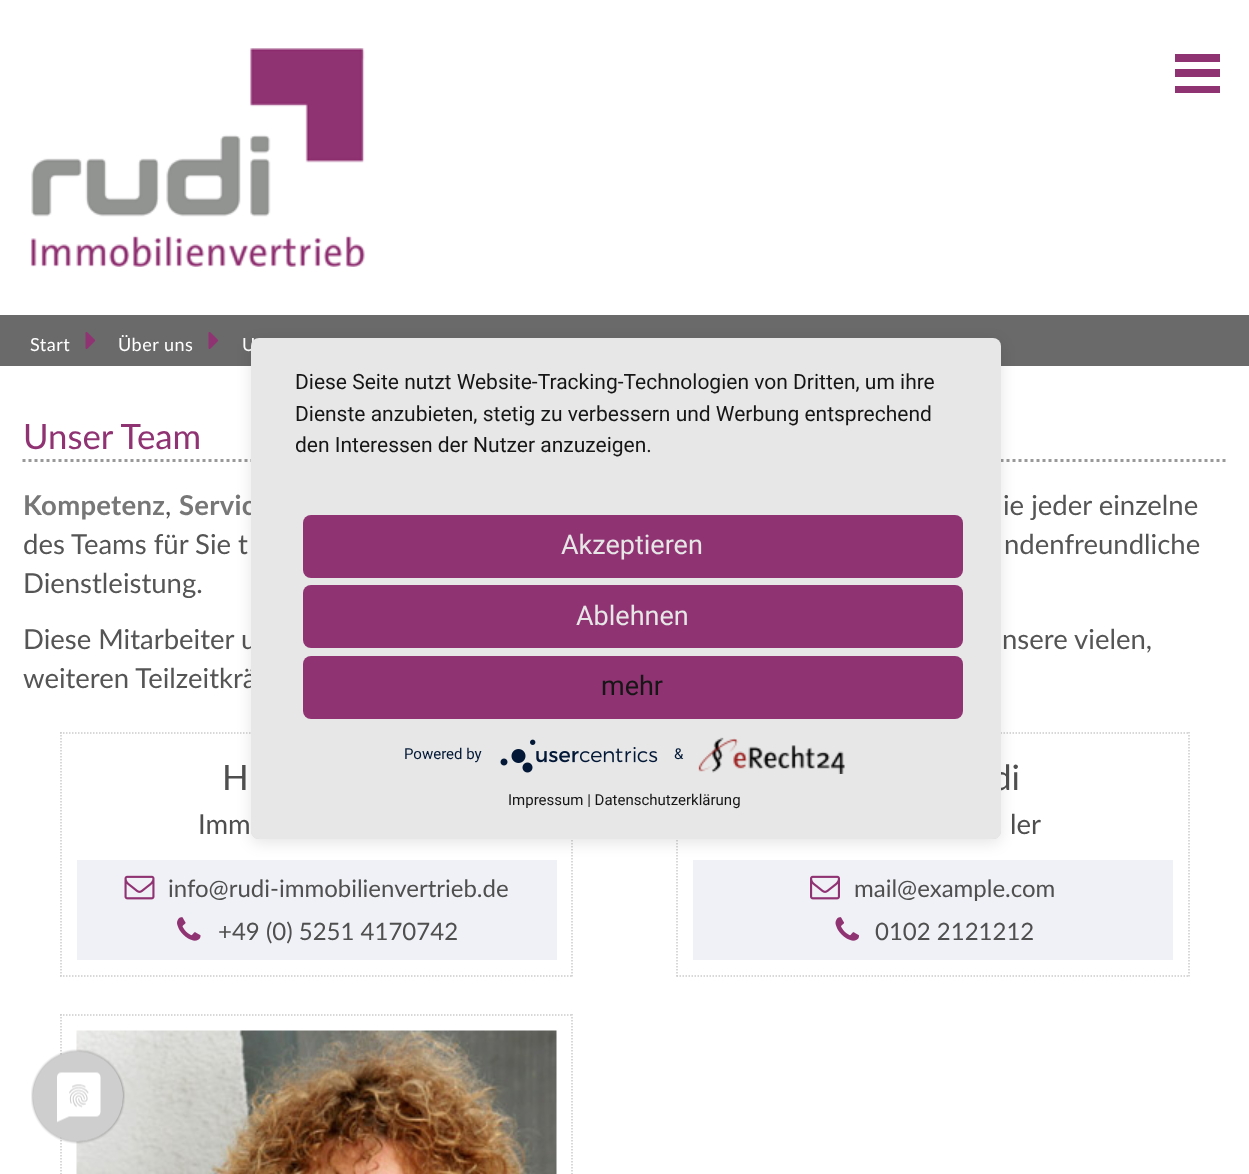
async function draw(canvas) {
	canvas.width = 1249;
	canvas.height = 1174;
	const c = canvas.getContext('2d');
	c.miterLimit = 4;
	c.fontKerning = 'normal';
	async function loadImage(src) {
		const img = new Image();
		img.src = src;
		await img.decode();
		return img;
	}

	c.fillStyle = '#fff';
	c.fillRect(0, 0, 1249, 1174);
	c.drawImage(await loadImage('img1.png'), 30, 48, 335, 219);
	for (const [x, y, w, h, color] of [
		[1175, 54, 45, 8, '#903373'],
		[1175, 69, 45, 8, '#903373'],
		[1175, 86, 45, 7, '#903373'],
		[0, 315, 1249, 51, '#6a6a6a'],
	]) {
		c.fillStyle = color;
		c.fillRect(x, y, w, h);
	}
	c.letterSpacing = '0.5px';
	c.font = '18px Lato';
	c.fillStyle = '#fff';
	c.fillText('Start', 30, 351);
	c.drawImage(await loadImage('img2.png'), 85, 332, 11, 17);
	c.fillText('Über uns', 118, 351);
	c.drawImage(await loadImage('img2.png'), 208, 332, 11, 17);
	c.fillText('U', 242, 351);
	c.beginPath();
	c.moveTo(22.5, 460.5);
	c.lineTo(1227, 460.5);
	c.strokeStyle = '#999';
	c.lineWidth = 3;
	c.setLineDash([3, 3]);
	c.stroke();
	c.letterSpacing = '0px';
	c.font = '34.75px Lato';
	c.fillStyle = '#903373';
	c.fillText('Unser Team', 23, 449);
	c.letterSpacing = '0.25px';
	c.font = 'bold 27.5px Lato';
	c.fillStyle = '#777';
	c.fillText('Kompetenz', 23, 515);
	c.letterSpacing = '0px';
	c.font = '27.5px Lato';
	c.fillStyle = '#555';
	c.fillText(',', 165, 515);
	c.letterSpacing = '0.25px';
	c.font = 'bold 27.5px Lato';
	c.fillStyle = '#777';
	c.fillText('Servic', 179, 515);
	c.letterSpacing = '0px';
	c.font = '27.5px Lato';
	c.fillStyle = '#555';
	for (const [text, x, y] of [
		['ie jeder einzelne', 1003, 515],
		['des Teams für Sie t', 23, 554],
		['ndenfreundliche', 1004, 554],
		['Dienstleistung.', 23, 593],
		['Diese Mitarbeiter u', 23, 649],
		['nsere vielen,', 1002, 649],
		['weiteren Teilzeitkrä', 23, 688],
	]) {
		c.fillText(text, x, y);
	}
	c.beginPath();
	c.moveTo(60, 733);
	c.lineTo(573, 733);
	c.strokeStyle = '#ccc';
	c.lineWidth = 1.5;
	c.setLineDash([1.5, 1.5]);
	c.stroke();
	c.beginPath();
	c.moveTo(572, 732);
	c.lineTo(572, 976.5);
	c.stroke();
	c.beginPath();
	c.moveTo(60, 976);
	c.lineTo(573, 976);
	c.stroke();
	c.beginPath();
	c.moveTo(61, 732);
	c.lineTo(61, 976.5);
	c.stroke();
	c.font = '35px Lato';
	c.fillStyle = '#4f4f4f';
	c.fillText('H', 222, 790);
	c.font = '27.5px Lato';
	c.fillText('Imm', 198, 834);
	c.fillStyle = '#f0f1f6';
	c.fillRect(77, 860, 480, 100);
	c.drawImage(await loadImage('img3.png'), 124, 875, 31, 25);
	c.font = '24px Lato';
	c.fillStyle = '#4f4f4f';
	c.fillText('info@rudi-immobilienvertrieb.de', 168, 897);
	c.drawImage(await loadImage('img4.png'), 177, 917, 24, 24);
	c.fillText('+49 (0) 5251 4170742', 218, 940);
	c.beginPath();
	c.moveTo(676.5, 733);
	c.lineTo(1189.5, 733);
	c.stroke();
	c.beginPath();
	c.moveTo(1189, 732);
	c.lineTo(1189, 976.5);
	c.stroke();
	c.beginPath();
	c.moveTo(676.5, 976);
	c.lineTo(1189.5, 976);
	c.stroke();
	c.beginPath();
	c.moveTo(677, 732);
	c.lineTo(677, 976.5);
	c.stroke();
	c.font = '35px Lato';
	c.fillText('di', 992, 790);
	c.font = '27.5px Lato';
	c.fillText('ler', 1010, 834);
	c.fillStyle = '#f0f1f6';
	c.fillRect(693, 860, 480, 100);
	c.drawImage(await loadImage('img5.png'), 810, 875, 30, 25);
	c.font = '24px Lato';
	c.fillStyle = '#4f4f4f';
	c.fillText('mail@example.com', 854, 897);
	c.drawImage(await loadImage('img6.png'), 835, 917, 25, 24);
	c.fillText('0102 2121212', 875, 940);
	c.beginPath();
	c.moveTo(60, 1015);
	c.lineTo(573, 1015);
	c.stroke();
	c.beginPath();
	c.moveTo(572, 1014);
	c.lineTo(572, 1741.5);
	c.stroke();
	c.beginPath();
	c.moveTo(61, 1014);
	c.lineTo(61, 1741.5);
	c.stroke();
	c.drawImage(await loadImage('img7.png'), 76, 1030, 481, 144);
	c.fillStyle = '#0000001a';
	c.filter = 'blur(7.5px)';
	c.beginPath();
	c.roundRect(251, 342, 750, 501, 8);
	c.fill();
	c.filter = 'none';
	c.save();
	c.beginPath();
	c.roundRect(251, 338, 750, 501, 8);
	c.clip();
	c.fillStyle = '#0000004d';
	c.filter = 'blur(27px)';
	c.beginPath();
	c.rect(251, 347, 750, 501);
	c.fill();
	c.filter = 'none';
	c.restore();
	c.fillStyle = '#e7e7e7';
	c.beginPath();
	c.roundRect(251, 338, 750, 501, 8);
	c.fill();
	c.font = '21px Roboto';
	c.fillStyle = '#161616';
	c.fillText('Diese Seite nutzt Website-Tracking-Technologien von Dritten, um ihre', 295, 389);
	c.fillText('Dienste anzubieten, stetig zu verbessern und Werbung entsprechend', 295, 421);
	c.save();
	c.beginPath();
	c.rect(296, 368, 660, 124);
	c.clip();
	c.fillText('den Interessen der Nutzer anzuzeigen.', 295, 452);
	c.restore();
	c.fillStyle = '#903373';
	c.beginPath();
	c.roundRect(303, 515, 660, 63, 8);
	c.fill();
	c.font = '27px Roboto';
	c.fillStyle = '#e6e6e6';
	c.fillText('Akzeptieren', 561, 554);
	c.fillStyle = '#903373';
	c.beginPath();
	c.roundRect(303, 585, 660, 63, 8);
	c.fill();
	c.fillStyle = '#e6e6e6';
	c.fillText('Ablehnen', 576, 625);
	c.fillStyle = '#903373';
	c.beginPath();
	c.roundRect(303, 656, 660, 63, 8);
	c.fill();
	c.fillStyle = '#161616';
	c.fillText('mehr', 601, 695);
	c.font = '15px Roboto';
	c.fillStyle = '#021836';
	c.fillText('Powered by', 404, 759);
	c.drawImage(await loadImage('img8.png'), 500, 739, 158, 34);
	c.fillText('&', 674, 759);
	c.drawImage(await loadImage('img9.png'), 698, 737, 147, 37);
	c.fillStyle = '#161616';
	c.fillText('Impressum | Datenschutzerklärung', 508, 805);
	c.drawImage(await loadImage('img10.png'), 31, 1049, 94, 95);
}

draw(document.querySelector('canvas'));
